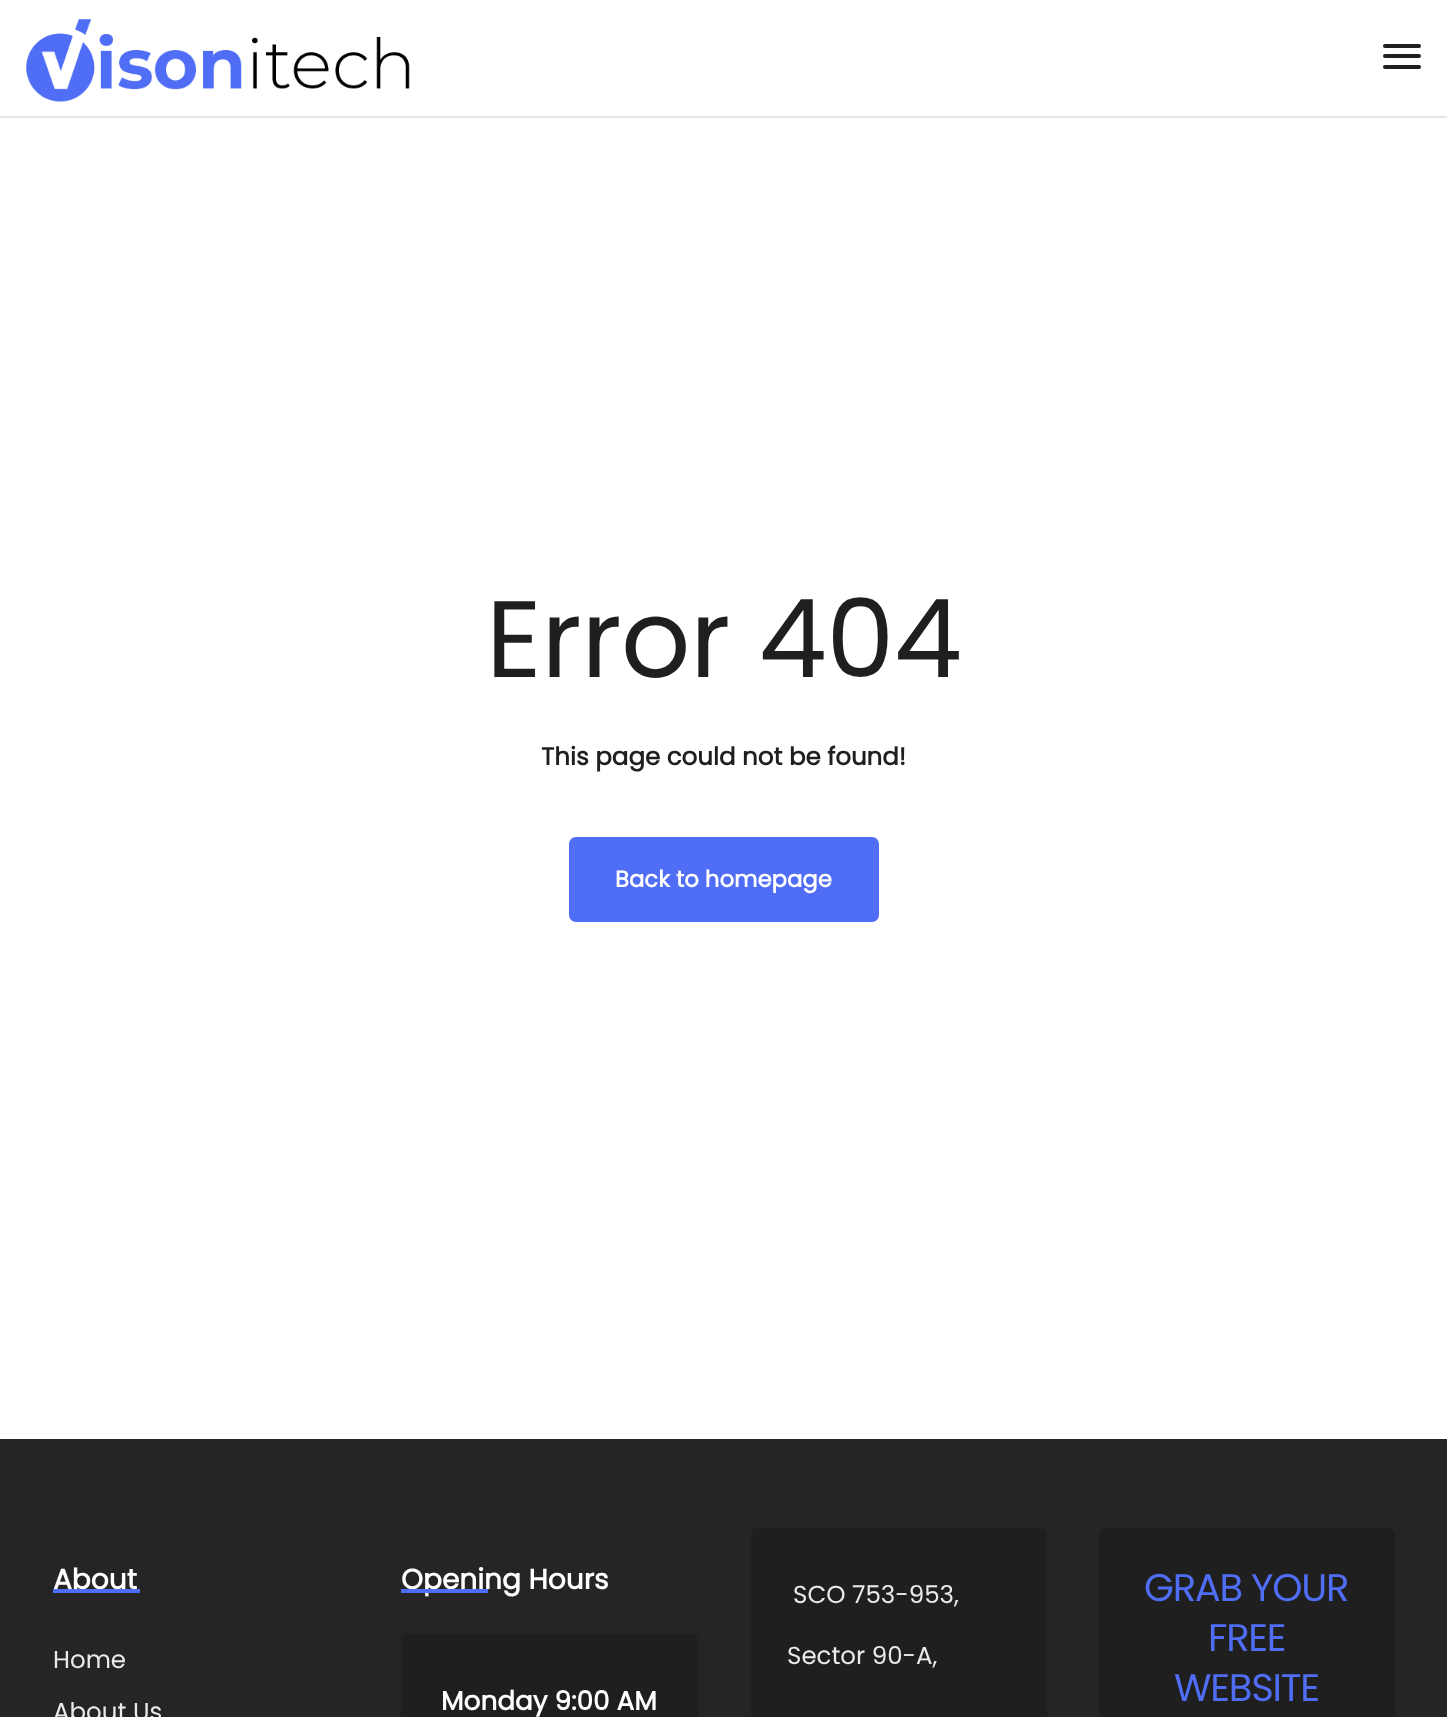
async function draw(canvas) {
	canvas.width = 1447;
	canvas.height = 1717;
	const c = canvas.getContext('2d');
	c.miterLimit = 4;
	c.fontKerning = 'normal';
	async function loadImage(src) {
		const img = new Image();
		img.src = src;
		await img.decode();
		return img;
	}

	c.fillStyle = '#fff';
	c.fillRect(0, 0, 1447, 1717);
	c.fillStyle = '#0000001a';
	c.fillRect(0, 116, 1447, 2);
	c.drawImage(await loadImage('img1.png'), 26, 19, 384, 83);
	c.fillStyle = '#1f1f1f';
	c.beginPath();
	c.roundRect(1383, 44, 38, 4, 2);
	c.fill();
	c.beginPath();
	c.roundRect(1383, 54, 38, 4, 2);
	c.fill();
	c.beginPath();
	c.roundRect(1383, 65, 38, 4, 2);
	c.fill();
	c.letterSpacing = '-0.5px';
	c.font = '108.5px Poppins';
	c.fillText('Error 404', 486, 677);
	c.letterSpacing = '0px';
	c.font = 'bold 24.5px Poppins';
	c.fillText('This page could not be found!', 541, 765);
	c.fillStyle = '#4f6df5';
	c.beginPath();
	c.roundRect(571, 839, 306, 81, 5);
	c.fill();
	c.strokeStyle = '#4f6df5';
	c.lineWidth = 4;
	c.stroke();
	c.font = 'bold 22.75px Poppins';
	c.fillStyle = '#fff';
	c.fillText('Back to homepage', 615, 887);
	c.fillStyle = '#252525';
	c.fillRect(0, 1439, 1447, 278);
	c.font = 'bold 28px Poppins';
	c.fillStyle = '#fff';
	c.fillText('About', 53, 1589);
	c.fillStyle = '#4f6df5';
	c.fillRect(53, 1589, 87, 4);
	c.font = '24.5px Poppins';
	c.fillStyle = '#eaeaea';
	c.fillText('Home', 53, 1668);
	c.fillText('About Us', 53, 1720);
	c.font = 'bold 28px Poppins';
	c.fillStyle = '#fff';
	c.fillText('Opening Hours', 401, 1589);
	c.fillStyle = '#4f6df5';
	c.fillRect(401, 1589, 87, 4);
	c.fillStyle = '#1f1f1f';
	c.beginPath();
	c.roundRect(401, 1633, 297, 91, 7);
	c.fill();
	c.font = 'bold 26.25px Poppins';
	c.fillStyle = '#fff';
	c.fillText('Monday 9:00 AM', 441, 1710);
	c.fillStyle = '#1f1f1f';
	c.beginPath();
	c.roundRect(751, 1528, 296, 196, 7);
	c.fill();
	c.font = '24.5px Poppins';
	c.fillStyle = '#eaeaea';
	c.fillText('SCO 753-953,', 793, 1603);
	c.fillText('Sector 90-A,', 787, 1664);
	c.fillStyle = '#1f1f1f';
	c.beginPath();
	c.roundRect(1099, 1528, 296, 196, 7);
	c.fill();
	c.letterSpacing = '-1.25px';
	c.font = '38.5px Poppins';
	c.fillStyle = '#4f6df5';
	for (const [text, x, y] of [
		['GRAB YOUR', 1144, 1601],
		['FREE', 1208, 1651],
		['WEBSITE', 1174, 1701],
	]) {
		c.fillText(text, x, y);
	}
}

draw(document.querySelector('canvas'));
